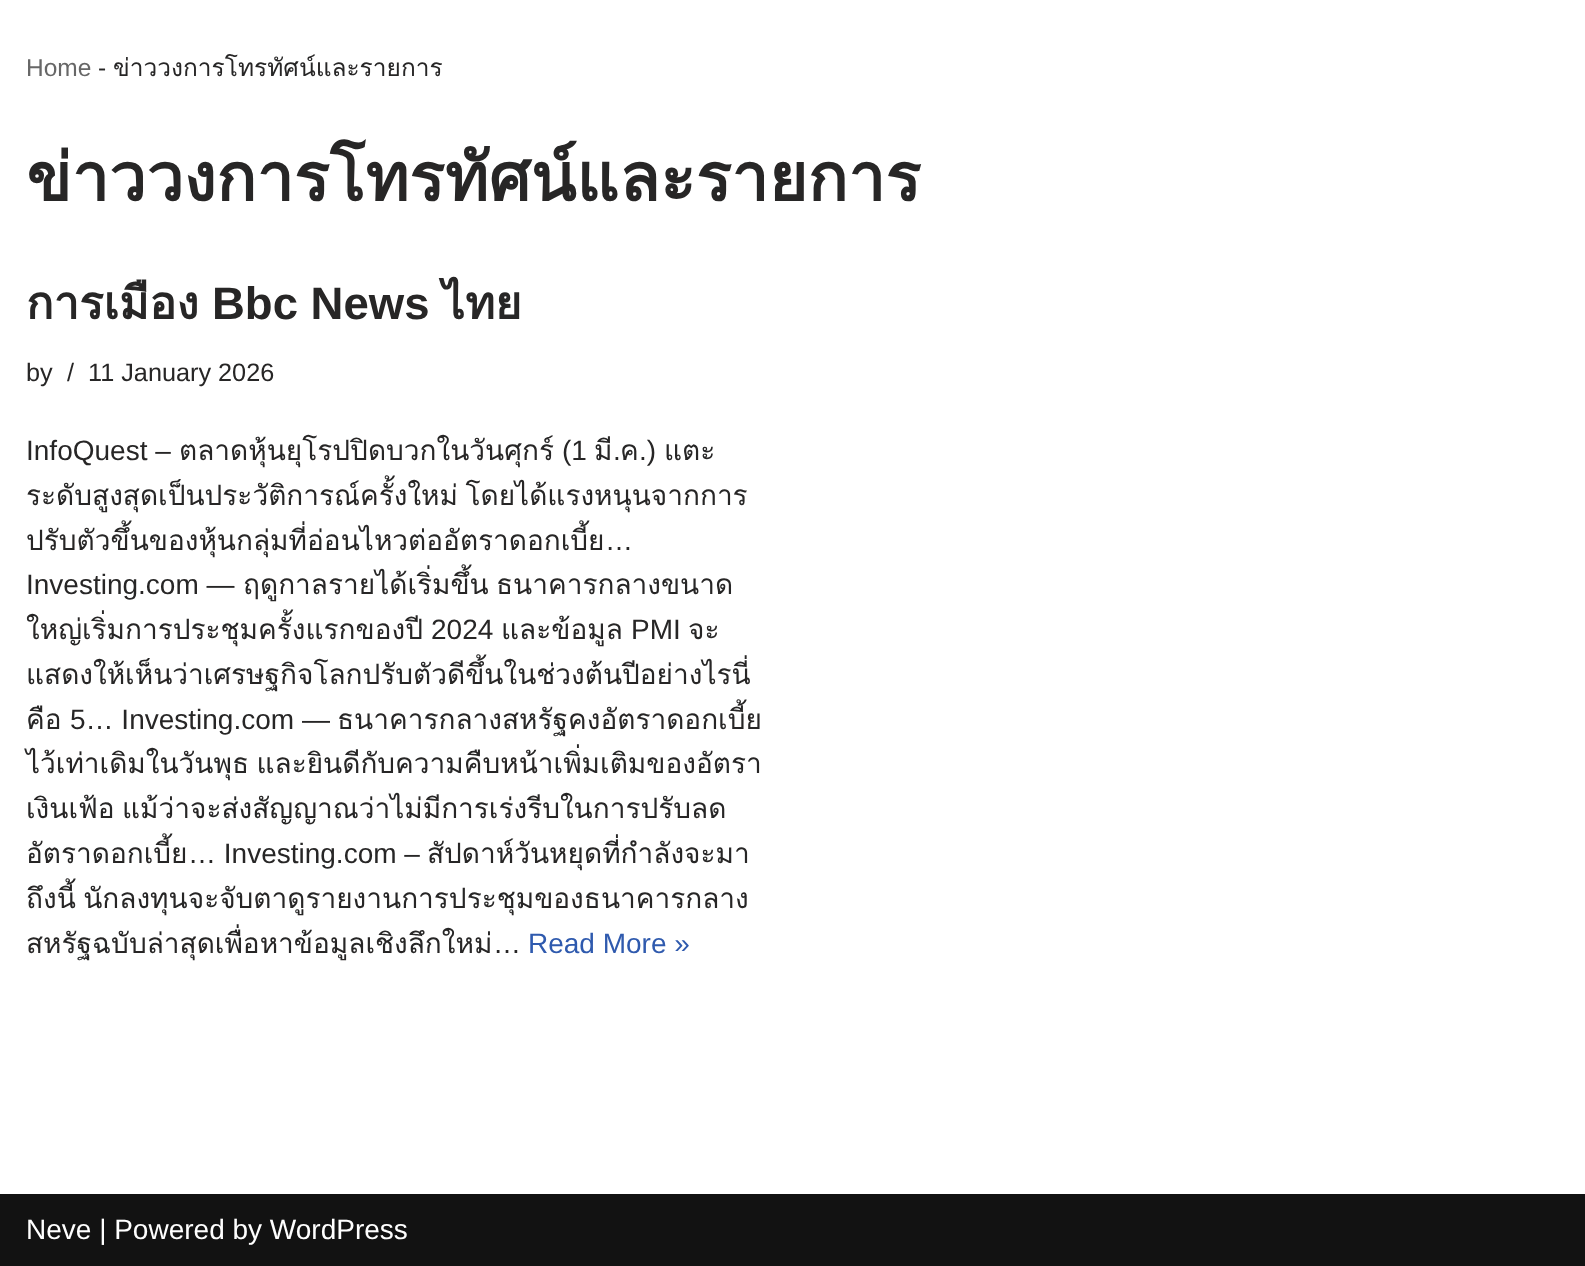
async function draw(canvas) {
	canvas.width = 1585;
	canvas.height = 1266;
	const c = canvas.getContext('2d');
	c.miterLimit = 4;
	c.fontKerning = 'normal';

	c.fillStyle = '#fff';
	c.fillRect(0, 0, 1585, 1266);
	c.font = '24.5px Liberation Sans';
	c.fillStyle = '#676767';
	c.fillText('Home', 26, 76);
	c.fillStyle = '#272626';
	c.fillText('-', 98, 76);
	c.font = '24.5px Loma';
	c.fillText('ข่าววงการโทรทัศน์และรายการ', 113, 76);
	c.font = 'bold 66.5px Loma';
	c.fillText('ข่าววงการโทรทัศน์และรายการ', 26, 201);
	c.font = 'bold 45.5px Loma';
	c.fillText('การเมือง', 26, 319);
	c.font = 'bold 45.5px Liberation Sans';
	c.fillText('Bbc News', 212, 319);
	c.font = 'bold 45.5px Loma';
	c.fillText('ไทย', 442, 319);
	c.font = '25.25px Liberation Sans';
	for (const [text, x, y] of [
		['by', 26, 381],
		['/', 67, 381],
		['11 January 2026', 88, 381],
	]) {
		c.fillText(text, x, y);
	}
	c.font = '28px Liberation Sans';
	c.fillText('InfoQuest –', 26, 460);
	c.font = '28px Loma';
	c.fillText('ตลาดหุ้นยุโรปปิดบวกในวันศุกร์', 179, 460);
	c.font = '28px Liberation Sans';
	c.fillText('(1', 562, 460);
	c.font = '28px Loma';
	c.fillText('มี', 594, 460);
	c.font = '28px Liberation Sans';
	c.fillText('.', 613, 460);
	c.font = '28px Loma';
	c.fillText('ค', 620, 460);
	c.font = '28px Liberation Sans';
	c.fillText('.)', 639, 460);
	c.font = '28px Loma';
	c.fillText('แตะ', 664, 460);
	c.wordSpacing = '-2px';
	c.fillText('ระดับสูงสุดเป็นประวัติการณ์ครั้งใหม่ โดยได้แรงหนุนจากการ', 26, 505);
	c.wordSpacing = '0px';
	c.fillText('ปรับตัวขึ้นของหุ้นกลุ่มที่อ่อนไหวต่ออัตราดอกเบี้ย', 26, 550);
	c.font = '28px Liberation Sans';
	c.fillText('…', 605, 550);
	c.fillText('Investing.com —', 26, 594);
	c.font = '28px Loma';
	for (const [text, x, y] of [
		['ฤดูกาลรายได้เริ่มขึ้น', 243, 594],
		['ธนาคารกลางขนาด', 496, 594],
		['ใหญ่เริ่มการประชุมครั้งแรกของปี', 26, 639],
	]) {
		c.fillText(text, x, y);
	}
	c.font = '28px Liberation Sans';
	c.fillText('2024', 431, 639);
	c.font = '28px Loma';
	c.fillText('และข้อมูล', 501, 639);
	c.font = '28px Liberation Sans';
	c.fillText('PMI', 631, 639);
	c.font = '28px Loma';
	for (const [text, x, y] of [
		['จะ', 688, 639],
		['แสดงให้เห็นว่าเศรษฐกิจโลกปรับตัวดีขึ้นในช่วงต้นปีอย่างไรนี่', 26, 684],
		['คือ', 26, 729],
	]) {
		c.fillText(text, x, y);
	}
	c.font = '28px Liberation Sans';
	c.fillText('5… Investing.com —', 70, 729);
	c.font = '28px Loma';
	c.fillText('ธนาคารกลางสหรัฐคงอัตราดอกเบี้ย', 337, 729);
	c.wordSpacing = '-2px';
	c.fillText('ไว้เท่าเดิมในวันพุธ และยินดีกับความคืบหน้าเพิ่มเติมของอัตรา', 26, 773);
	c.fillText('เงินเฟ้อ แม้ว่าจะส่งสัญญาณว่าไม่มีการเร่งรีบในการปรับลด', 26, 818);
	c.wordSpacing = '0px';
	c.fillText('อัตราดอกเบี้ย', 26, 863);
	c.font = '28px Liberation Sans';
	c.fillText('… Investing.com –', 188, 863);
	c.font = '28px Loma';
	c.fillText('สัปดาห์วันหยุดที่กำลังจะมา', 427, 863);
	c.wordSpacing = '-2px';
	c.fillText('ถึงนี้ นักลงทุนจะจับตาดูรายงานการประชุมของธนาคารกลาง', 26, 908);
	c.wordSpacing = '0px';
	c.fillText('สหรัฐฉบับล่าสุดเพื่อหาข้อมูลเชิงลึกใหม่', 26, 953);
	c.font = '28px Liberation Sans';
	c.fillText('…', 493, 953);
	c.fillStyle = '#2f5aae';
	c.fillText('Read More »', 528, 953);
	c.fillStyle = '#121212';
	c.fillRect(0, 1194, 1585, 72);
	c.fillStyle = '#fff';
	c.fillText('Neve | Powered by WordPress', 26, 1239);
}

draw(document.querySelector('canvas'));
